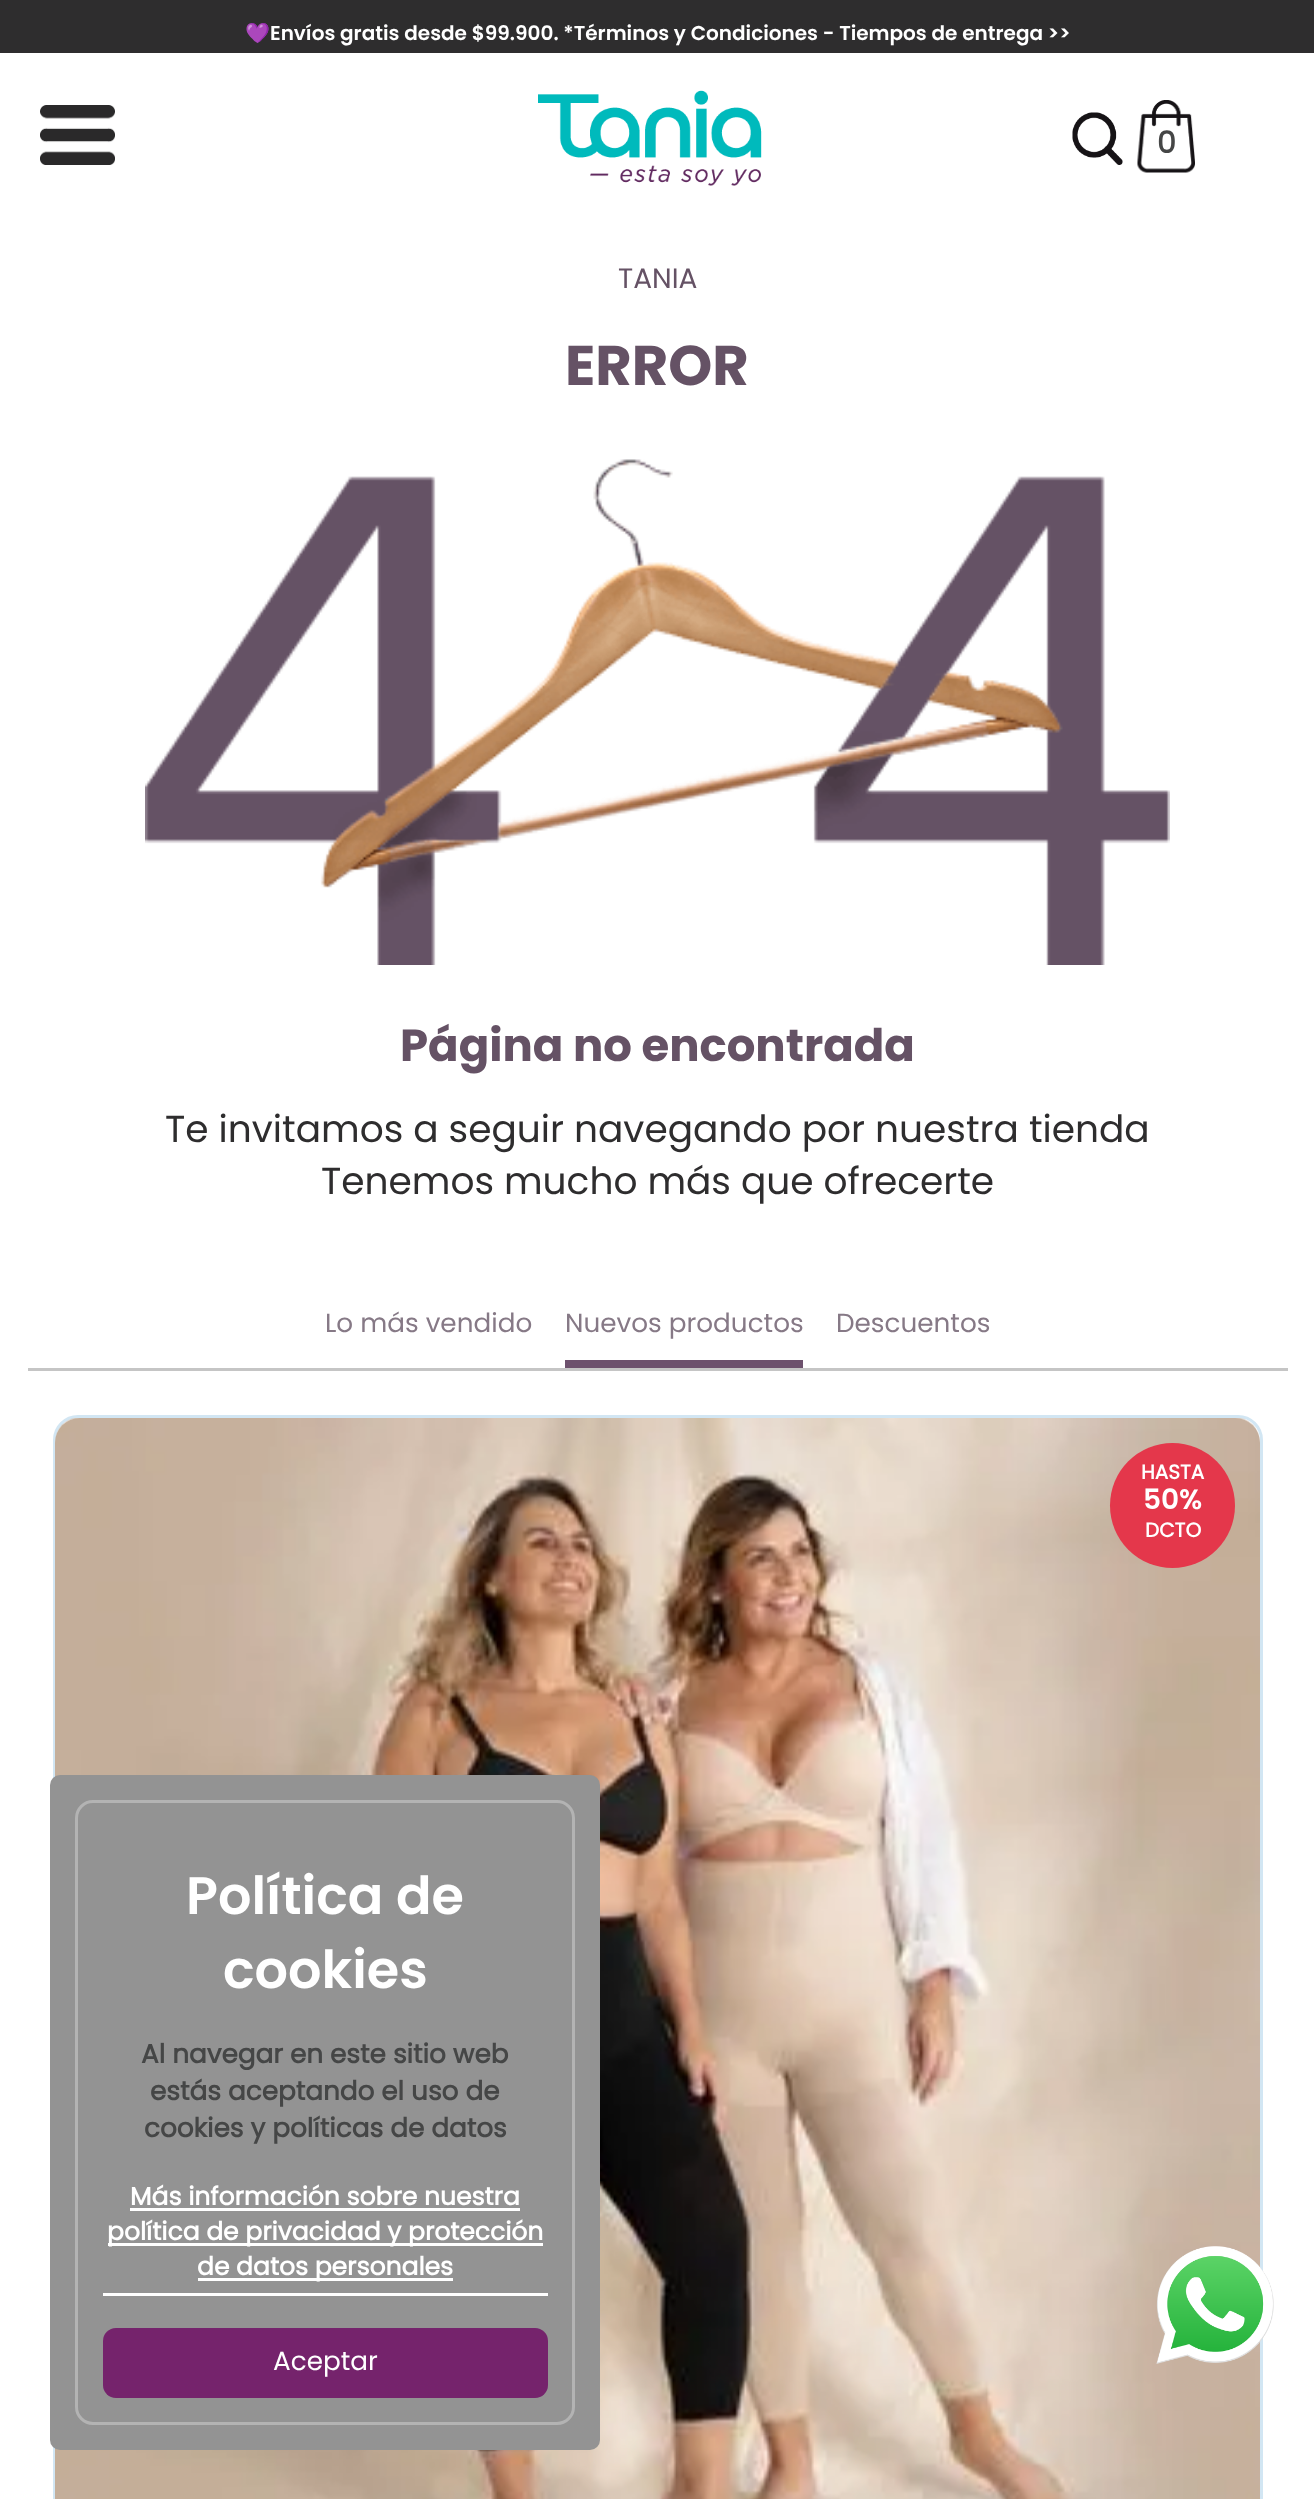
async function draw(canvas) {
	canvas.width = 1314;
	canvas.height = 2499;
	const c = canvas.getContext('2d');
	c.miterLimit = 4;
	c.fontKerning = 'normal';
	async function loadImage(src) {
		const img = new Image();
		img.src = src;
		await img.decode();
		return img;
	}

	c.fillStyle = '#fff';
	c.fillRect(0, 0, 1314, 2499);
	c.fillStyle = '#2e2d2e';
	c.fillRect(0, 0, 1314, 53);
	c.font = 'bold 20px Noto Color Emoji';
	c.fillStyle = '#fff';
	c.fillText('💜', 245, 40);
	c.font = '600 20px Poppins';
	c.fillText('Envíos gratis desde $99.900. *Términos y Condiciones - Tiempos de entrega >>', 270, 40);
	c.drawImage(await loadImage('img1.png'), 40, 105, 75, 60);
	c.drawImage(await loadImage('img2.png'), 538, 90, 224, 96);
	c.drawImage(await loadImage('img3.png'), 1072, 112, 51, 53);
	c.drawImage(await loadImage('img4.png'), 1137, 100, 58, 73);
	c.font = 'bold 30px "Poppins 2"';
	c.fillStyle = '#454646';
	c.fillText('0', 1157, 153);
	c.font = '28px Poppins';
	c.fillStyle = '#655265';
	c.fillText('TANIA', 618, 288);
	c.font = 'bold 56px Poppins';
	c.fillText('ERROR', 565, 385);
	c.drawImage(await loadImage('img5.png'), 145, 459, 1025, 506);
	c.font = 'bold 45px Poppins';
	c.fillText('Página no encontrada', 400, 1061);
	c.font = '37.5px Poppins';
	c.fillStyle = '#2e2d2e';
	c.fillText('Te invitamos a seguir navegando por nuestra tienda', 165, 1142);
	c.fillText('Tenemos mucho más que ofrecerte', 321, 1194);
	c.fillStyle = '#c5c5c5';
	c.fillRect(28, 1368, 1260, 3);
	c.font = '26.25px Poppins';
	c.fillStyle = '#867986';
	for (const [text, x, y] of [
		['Lo más vendido', 325, 1332],
		['Nuevos productos', 565, 1332],
		['Descuentos', 836, 1332],
	]) {
		c.fillText(text, x, y);
	}
	c.fillStyle = '#6d516d';
	c.fillRect(565, 1360, 238, 8);
	c.beginPath();
	c.roundRect(54.5, 1416.5, 1207, 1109, 23.5);
	c.strokeStyle = '#d2e6f3';
	c.lineWidth = 3;
	c.stroke();
	c.drawImage(await loadImage('img6.png'), 55, 1418, 1205, 1081);
	c.fillStyle = '#e4374b';
	c.beginPath();
	c.arc(1172.5, 1505.5, 62.5, 0, 2 * Math.PI);
	c.fill();
	c.font = 'bold 20px "Poppins 2"';
	c.fillStyle = '#fff';
	c.fillText('HASTA', 1141, 1479);
	c.font = '600 28px Poppins';
	c.fillText('50%', 1143, 1509);
	c.font = 'bold 20px "Poppins 2"';
	c.fillText('DCTO', 1145, 1537);
	c.fillStyle = '#939393';
	c.beginPath();
	c.roundRect(50, 1775, 550, 675, 10);
	c.fill();
	c.beginPath();
	c.roundRect(76.5, 1801.5, 497, 622, 16.5);
	c.strokeStyle = '#b3b3b3';
	c.stroke();
	c.font = '600 52.5px Poppins';
	c.fillStyle = '#fff';
	c.fillText('Política de', 186, 1914);
	c.fillText('cookies', 223, 1988);
	c.font = 'bold 26.25px "Poppins 2"';
	c.fillStyle = '#454646';
	for (const [text, x, y] of [
		['Al navegar en este sitio web', 141, 2063],
		['estás aceptando el uso de', 150, 2100],
		['cookies y políticas de datos', 144, 2137],
	]) {
		c.fillText(text, x, y);
	}
	c.fillStyle = '#fff';
	c.fillRect(103, 2293, 445, 3);
	c.font = 'bold 25px "Poppins 2"';
	c.fillText('Más información sobre nuestra', 130, 2205);
	c.fillRect(130, 2208, 390, 3);
	c.fillRect(108, 2243, 435, 3);
	c.fillText('política de privacidad y protección', 107, 2240);
	c.fillRect(198, 2278, 255, 3);
	c.fillText('de datos personales', 197, 2275);
	c.fillStyle = '#75236c';
	c.beginPath();
	c.roundRect(103, 2328, 445, 70, 13);
	c.fill();
	c.font = '26.25px Poppins';
	c.fillStyle = '#fff';
	c.fillText('Aceptar', 273, 2370);
	c.drawImage(await loadImage('img7.png'), 1156, 2246, 118, 118);
}

draw(document.querySelector('canvas'));
